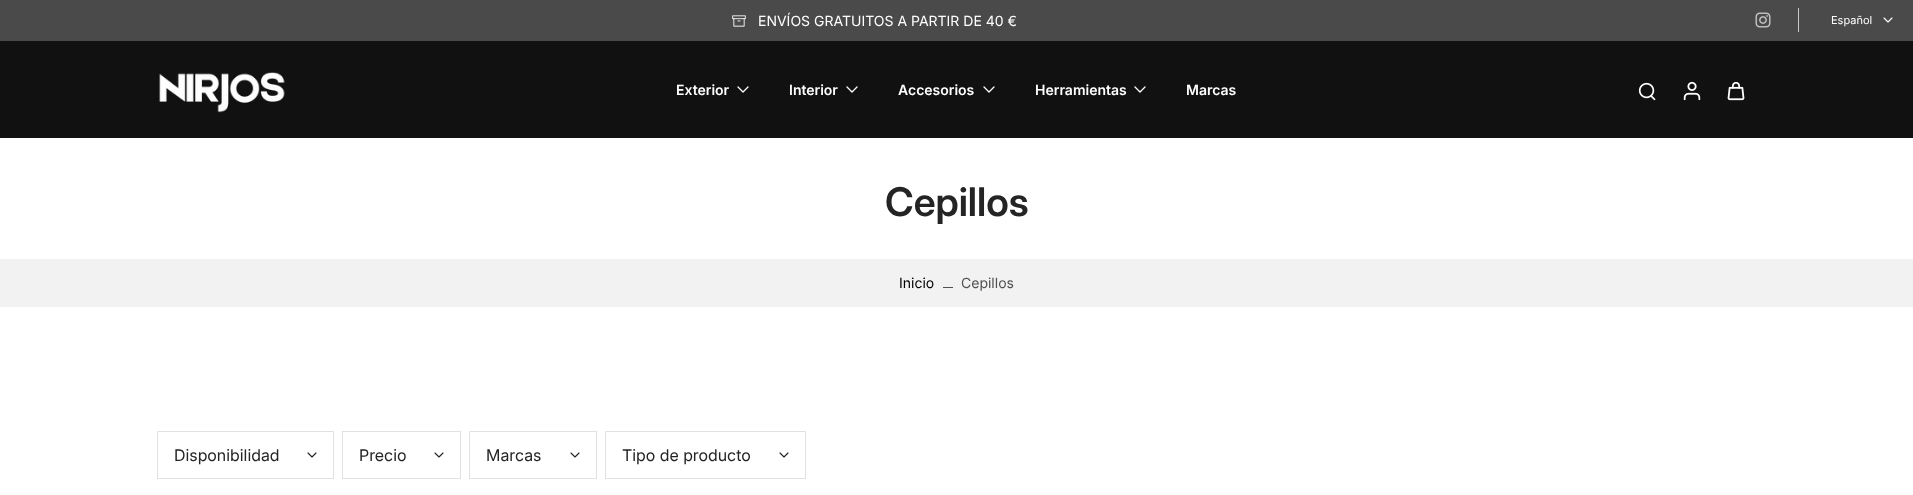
async function draw(canvas) {
	canvas.width = 1913;
	canvas.height = 495;
	const c = canvas.getContext('2d');
	c.miterLimit = 4;
	c.fontKerning = 'normal';
	async function loadImage(src) {
		const img = new Image();
		img.src = src;
		await img.decode();
		return img;
	}

	c.fillStyle = '#fff';
	c.fillRect(0, 0, 1913, 495);
	c.fillStyle = '#4a4a4a';
	c.fillRect(0, 0, 1913, 41);
	c.drawImage(await loadImage('img1.png'), 732, 15, 14, 12);
	c.font = '14px Inter';
	c.fillStyle = '#fff';
	c.fillText('ENVÍOS GRATUITOS A PARTIR DE 40 €', 758, 26);
	c.fillStyle = '#c9c9c9';
	c.fillRect(1798, 8, 1, 24);
	c.drawImage(await loadImage('img2.png'), 1755, 12, 16, 16);
	c.font = '11px Inter';
	c.fillStyle = '#fff';
	c.fillText('Español', 1831, 24);
	c.beginPath();
	c.moveTo(1884, 18);
	c.lineTo(1888, 22);
	c.lineTo(1892, 18);
	c.strokeStyle = '#fff';
	c.lineWidth = 1.1;
	c.lineCap = 'round';
	c.lineJoin = 'round';
	c.stroke();
	c.fillStyle = '#111';
	c.fillRect(0, 41, 1913, 97);
	c.drawImage(await loadImage('img3.png'), 159, 72, 126, 41);
	c.font = '600 14px "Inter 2"';
	c.fillStyle = '#fff';
	c.fillText('Exterior', 676, 95);
	c.beginPath();
	c.moveTo(738, 87);
	c.lineTo(743, 92);
	c.lineTo(748, 87);
	c.lineWidth = 1.3;
	c.stroke();
	c.fillText('Interior', 789, 95);
	c.beginPath();
	c.moveTo(847, 87);
	c.lineTo(852, 92);
	c.lineTo(857, 87);
	c.stroke();
	c.fillText('Accesorios', 898, 95);
	c.beginPath();
	c.moveTo(984, 87);
	c.lineTo(989, 92);
	c.lineTo(994, 87);
	c.stroke();
	c.fillText('Herramientas', 1035, 95);
	c.beginPath();
	c.moveTo(1135, 87);
	c.lineTo(1140, 92);
	c.lineTo(1145, 87);
	c.stroke();
	c.fillText('Marcas', 1186, 95);
	c.drawImage(await loadImage('img4.png'), 1638, 82, 18, 19);
	c.drawImage(await loadImage('img5.png'), 1683, 81, 18, 20);
	c.drawImage(await loadImage('img6.png'), 1727, 81, 18, 20);
	c.font = '600 39.5px Inter';
	c.fillStyle = '#242424';
	c.fillText('Cepillos', 885, 216);
	c.fillStyle = '#f2f2f2';
	c.fillRect(0, 259, 1913, 48);
	c.font = '14px Inter';
	c.fillStyle = '#000';
	c.fillText('Inicio', 899, 288);
	c.fillStyle = '#525151';
	c.fillRect(943, 287, 10, 1);
	c.fillText('Cepillos', 961, 288);
	c.strokeStyle = '#e1e1e1';
	c.lineWidth = 1;
	c.lineJoin = 'miter';
	c.strokeRect(157.5, 431.5, 176, 47);
	c.font = '16px "Inter 2"';
	c.fillStyle = '#242424';
	c.fillText('Disponibilidad', 174, 461);
	c.beginPath();
	c.moveTo(308, 453);
	c.lineTo(312, 457);
	c.lineTo(316, 453);
	c.strokeStyle = '#242424';
	c.lineWidth = 1.1;
	c.lineJoin = 'round';
	c.stroke();
	c.strokeStyle = '#e1e1e1';
	c.lineWidth = 1;
	c.lineJoin = 'miter';
	c.strokeRect(342.5, 431.5, 118, 47);
	c.fillText('Precio', 359, 461);
	c.beginPath();
	c.moveTo(435, 453);
	c.lineTo(439, 457);
	c.lineTo(443, 453);
	c.strokeStyle = '#242424';
	c.lineWidth = 1.1;
	c.lineJoin = 'round';
	c.stroke();
	c.strokeStyle = '#e1e1e1';
	c.lineWidth = 1;
	c.lineJoin = 'miter';
	c.strokeRect(469.5, 431.5, 127, 47);
	c.fillText('Marcas', 486, 461);
	c.beginPath();
	c.moveTo(571, 453);
	c.lineTo(575, 457);
	c.lineTo(579, 453);
	c.strokeStyle = '#242424';
	c.lineWidth = 1.1;
	c.lineJoin = 'round';
	c.stroke();
	c.strokeStyle = '#e1e1e1';
	c.lineWidth = 1;
	c.lineJoin = 'miter';
	c.strokeRect(605.5, 431.5, 200, 47);
	c.fillText('Tipo de producto', 622, 461);
	c.beginPath();
	c.moveTo(780, 453);
	c.lineTo(784, 457);
	c.lineTo(788, 453);
	c.strokeStyle = '#242424';
	c.lineWidth = 1.1;
	c.lineJoin = 'round';
	c.stroke();
}

draw(document.querySelector('canvas'));
